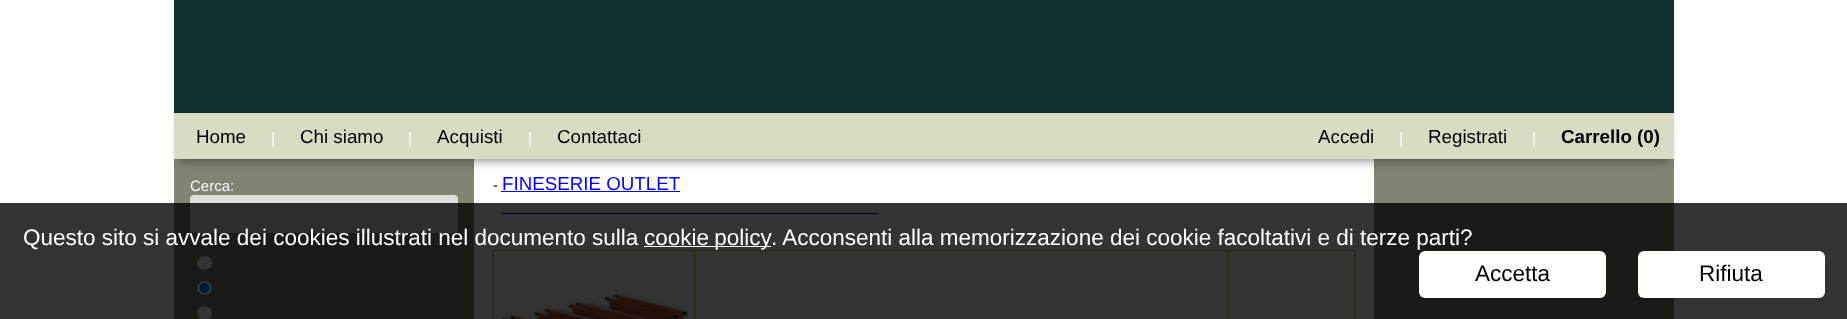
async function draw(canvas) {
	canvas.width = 1847;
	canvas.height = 319;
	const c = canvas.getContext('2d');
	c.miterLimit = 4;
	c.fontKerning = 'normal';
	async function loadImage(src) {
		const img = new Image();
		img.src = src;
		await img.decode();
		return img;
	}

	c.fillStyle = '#fff';
	c.fillRect(0, 0, 1847, 319);
	for (const [x, y, w, h, color] of [
		[174, 0, 1500, 113, '#12302f'],
		[174, 159, 300, 160, '#838374'],
		[1374, 159, 300, 160, '#838374'],
	]) {
		c.fillStyle = color;
		c.fillRect(x, y, w, h);
	}
	c.fillStyle = '#00000080';
	c.filter = 'blur(5.5px)';
	c.beginPath();
	c.rect(180, 126, 1488, 34);
	c.fill();
	c.filter = 'none';
	c.fillStyle = '#dadbc3';
	c.fillRect(174, 113, 1500, 46);
	c.font = '18.75px Liberation Sans';
	c.fillStyle = '#000';
	c.fillText('Home', 196, 143);
	c.font = '15px Liberation Sans';
	c.fillStyle = '#fff';
	c.fillText('|', 271, 143);
	c.font = '18.75px Liberation Sans';
	c.fillStyle = '#000';
	c.fillText('Chi siamo', 300, 143);
	c.font = '15px Liberation Sans';
	c.fillStyle = '#fff';
	c.fillText('|', 408, 143);
	c.font = '18.75px Liberation Sans';
	c.fillStyle = '#000';
	c.fillText('Acquisti', 437, 143);
	c.font = '15px Liberation Sans';
	c.fillStyle = '#fff';
	c.fillText('|', 528, 143);
	c.font = '18.75px Liberation Sans';
	c.fillStyle = '#000';
	c.fillText('Contattaci', 557, 143);
	c.fillText('Accedi', 1318, 143);
	c.font = '15px Liberation Sans';
	c.fillStyle = '#fff';
	c.fillText('|', 1399, 143);
	c.font = '18.75px Liberation Sans';
	c.fillStyle = '#000';
	c.fillText('Registrati', 1428, 143);
	c.font = '15px Liberation Sans';
	c.fillStyle = '#fff';
	c.fillText('|', 1532, 143);
	c.font = 'bold 18.75px Liberation Sans';
	c.fillStyle = '#000';
	c.fillText('Carrello (0)', 1561, 143);
	c.font = '15px Liberation Sans';
	c.fillStyle = '#f7f7f7';
	c.fillText('Cerca:', 190, 191);
	c.fillStyle = '#dfdfdb';
	c.beginPath();
	c.roundRect(190, 195, 268, 38, 4);
	c.fill();
	c.fillStyle = '#fff';
	c.beginPath();
	c.roundRect(196.5, 255.5, 16, 15, 7.5);
	c.fill();
	c.strokeStyle = '#767676';
	c.stroke();
	c.beginPath();
	c.roundRect(196.5, 280.5, 16, 15, 7.5);
	c.fill();
	c.strokeStyle = '#0075ff';
	c.stroke();
	c.fillStyle = '#0075ff';
	c.beginPath();
	c.arc(204.5, 288, 5, 0, 2 * Math.PI);
	c.fill();
	c.fillStyle = '#fff';
	c.beginPath();
	c.roundRect(196.5, 305.5, 16, 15, 7.5);
	c.fill();
	c.strokeStyle = '#767676';
	c.stroke();
	c.fillStyle = '#000';
	c.fillText('-', 493, 190);
	c.fillStyle = '#00f';
	c.fillRect(501, 191, 179, 1);
	c.font = '18.75px Liberation Sans';
	c.fillText('FINESERIE OUTLET', 502, 190);
	for (const [x, y, w, h, color] of [
		[501, 213, 377, 1, '#00f'],
		[493, 250, 862, 1, '#c8ac4a'],
		[1354, 250, 1, 69, '#c8ac4a'],
		[493, 250, 1, 69, '#c8ac4a'],
	]) {
		c.fillStyle = color;
		c.fillRect(x, y, w, h);
	}
	c.drawImage(await loadImage('img1.png'), 500, 284, 188, 35);
	for (const [x, y, w, h, color] of [
		[694, 250, 1, 69, '#c8ac4a'],
		[1228, 250, 1, 69, '#c8ac4a'],
		[0, 203, 1847, 116, '#000000cc'],
	]) {
		c.fillStyle = color;
		c.fillRect(x, y, w, h);
	}
	c.font = '22.5px Liberation Sans';
	c.fillStyle = '#fff';
	c.fillText('Questo sito si avvale dei cookies illustrati nel documento sulla', 23, 245);
	c.fillRect(644, 246, 127, 1);
	c.wordSpacing = '-1px';
	c.fillText('cookie policy', 644, 245);
	c.wordSpacing = '0px';
	c.fillText('. Acconsenti alla memorizzazione dei cookie facoltativi e di terze parti?', 771, 245);
	c.beginPath();
	c.roundRect(1419, 251, 187, 47, 6);
	c.fill();
	c.fillStyle = '#000';
	c.fillText('Accetta', 1475, 281);
	c.fillStyle = '#fff';
	c.beginPath();
	c.roundRect(1638, 251, 187, 47, 6);
	c.fill();
	c.fillStyle = '#000';
	c.fillText('Rifiuta', 1699, 281);
}

draw(document.querySelector('canvas'));
